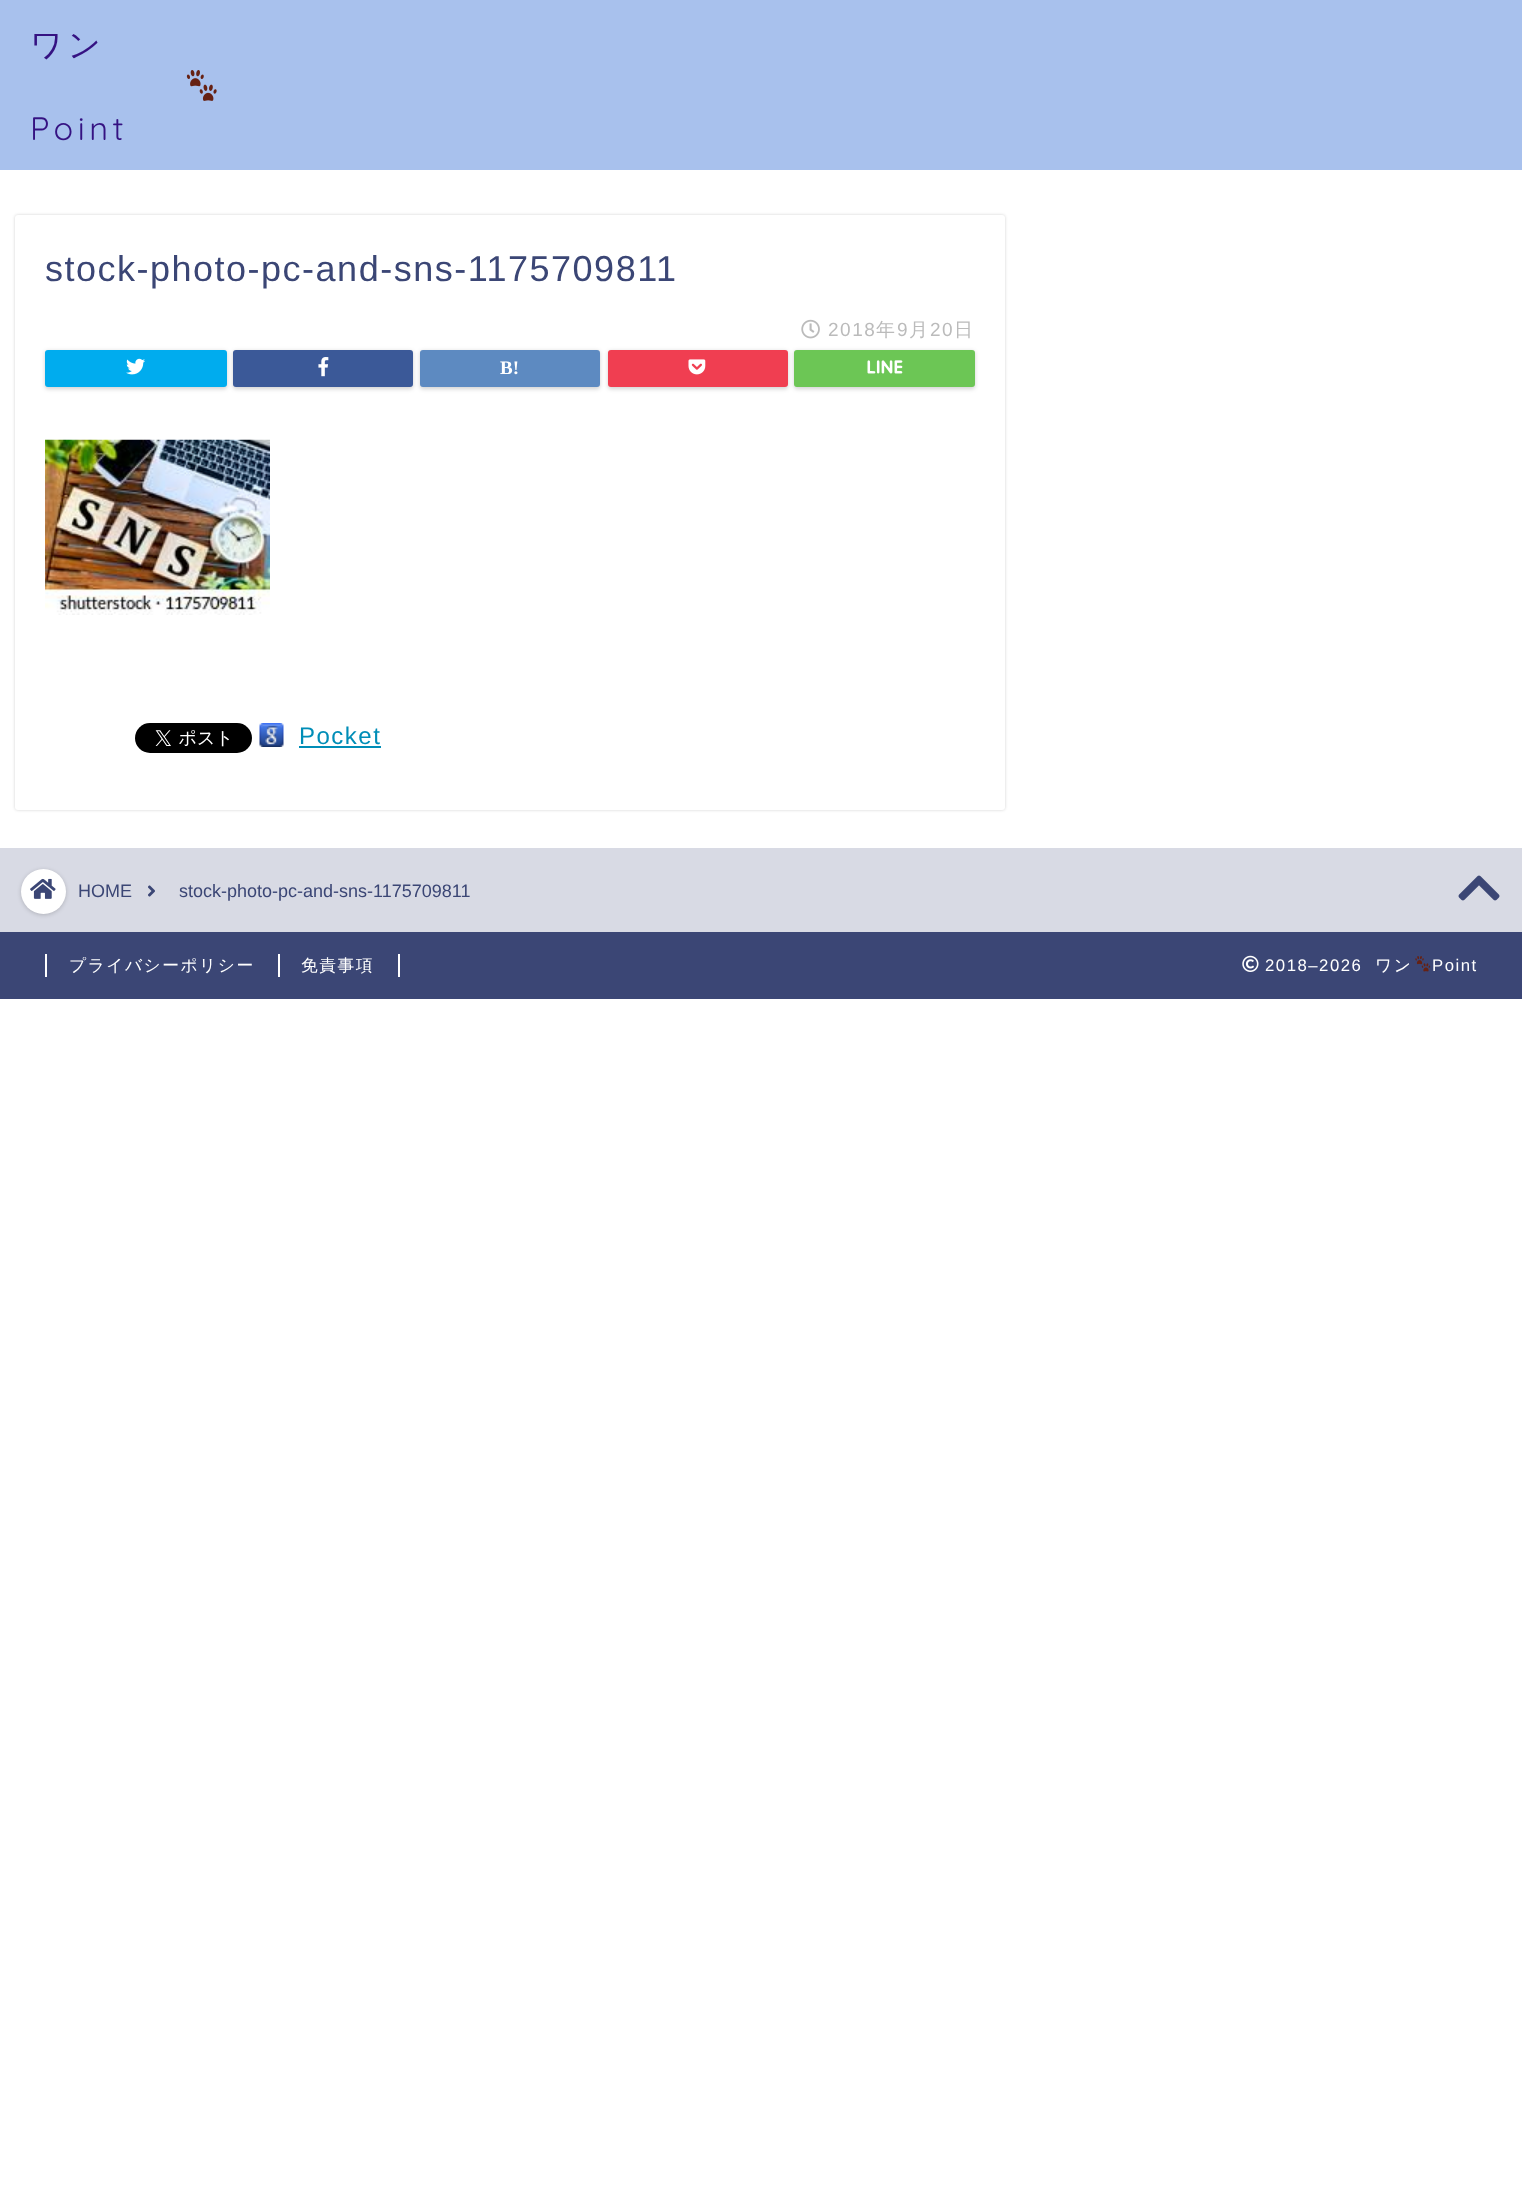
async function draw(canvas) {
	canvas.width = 1522;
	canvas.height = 2207;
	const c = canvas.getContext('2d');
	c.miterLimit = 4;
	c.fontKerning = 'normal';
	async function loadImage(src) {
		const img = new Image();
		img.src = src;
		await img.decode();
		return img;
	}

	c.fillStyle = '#fff';
	c.fillRect(0, 0, 1522, 2207);
	c.fillStyle = '#a8c1ed';
	c.fillRect(0, 0, 1522, 170);
	c.letterSpacing = '4.5px';
	c.font = '500 32.5px WenQuanYi Zen Hei';
	c.fillStyle = '#351282';
	c.fillText('ワン', 30, 56);
	c.drawImage(await loadImage('img1.png'), 186, 70, 31, 31);
	c.font = '300 32.5px Quicksand';
	c.fillText('Point', 30, 140);
	c.fillStyle = '#0000002e';
	c.filter = 'blur(1.5px)';
	c.beginPath();
	c.roundRect(15, 215, 990, 595, 3);
	c.fill();
	c.filter = 'none';
	c.fillStyle = '#fff';
	c.beginPath();
	c.roundRect(15, 215, 990, 595, 3);
	c.fill();
	c.letterSpacing = '1.5px';
	c.font = '36px Liberation Sans';
	c.fillStyle = '#3b4675';
	c.fillText('stock-photo-pc-and-sns-1175709811', 45, 281);
	c.drawImage(await loadImage('img2.png'), 801, 319, 19, 20);
	c.font = '19px Liberation Sans';
	c.fillStyle = '#bbb';
	c.fillText('2018', 828, 336);
	c.font = '500 19px WenQuanYi Zen Hei';
	c.fillText('年', 876, 336);
	c.font = '19px Liberation Sans';
	c.fillText('9', 897, 336);
	c.font = '500 19px WenQuanYi Zen Hei';
	c.fillText('月', 909, 336);
	c.font = '19px Liberation Sans';
	c.fillText('20', 930, 336);
	c.font = '500 19px WenQuanYi Zen Hei';
	c.fillText('日', 954, 336);
	c.fillStyle = '#0000002e';
	c.filter = 'blur(2px)';
	c.beginPath();
	c.roundRect(45, 351, 182, 38, 3);
	c.fill();
	c.filter = 'none';
	c.fillStyle = '#00acee';
	c.beginPath();
	c.roundRect(46.5, 351.5, 179, 34, 1.5);
	c.fill();
	c.strokeStyle = '#00acee';
	c.lineWidth = 3;
	c.stroke();
	c.drawImage(await loadImage('img3.png'), 126, 358, 19, 17);
	c.fillStyle = '#0000002e';
	c.filter = 'blur(2px)';
	c.beginPath();
	c.roundRect(233, 351, 180, 38, 3);
	c.fill();
	c.filter = 'none';
	c.fillStyle = '#3b5998';
	c.beginPath();
	c.roundRect(234.5, 351.5, 177, 34, 1.5);
	c.fill();
	c.strokeStyle = '#3b5998';
	c.stroke();
	c.drawImage(await loadImage('img4.png'), 318, 357, 11, 20);
	c.fillStyle = '#0000002e';
	c.filter = 'blur(2px)';
	c.beginPath();
	c.roundRect(420, 351, 180, 38, 3);
	c.fill();
	c.filter = 'none';
	c.fillStyle = '#5d8ac1';
	c.beginPath();
	c.roundRect(421.5, 351.5, 177, 34, 1.5);
	c.fill();
	c.strokeStyle = '#5d8ac1';
	c.stroke();
	c.letterSpacing = '0px';
	c.font = 'bold 19px Liberation Serif';
	c.fillStyle = '#fff';
	c.fillText('B!', 500, 374);
	c.fillStyle = '#0000002e';
	c.filter = 'blur(2px)';
	c.beginPath();
	c.roundRect(608, 351, 180, 38, 3);
	c.fill();
	c.filter = 'none';
	c.fillStyle = '#f03e51';
	c.beginPath();
	c.roundRect(609.5, 351.5, 177, 34, 1.5);
	c.fill();
	c.strokeStyle = '#f03e51';
	c.stroke();
	c.drawImage(await loadImage('img5.png'), 688, 359, 18, 16);
	c.fillStyle = '#0000002e';
	c.filter = 'blur(2px)';
	c.beginPath();
	c.roundRect(794, 351, 181, 38, 3);
	c.fill();
	c.filter = 'none';
	c.fillStyle = '#6cc655';
	c.beginPath();
	c.roundRect(795.5, 351.5, 178, 34, 1.5);
	c.fill();
	c.strokeStyle = '#6cc655';
	c.stroke();
	c.drawImage(await loadImage('img6.png'), 867, 360, 36, 14);
	c.drawImage(await loadImage('img7.png'), 45, 439, 225, 176);
	c.drawImage(await loadImage('img8.png'), 135, 723, 117, 30);
	c.drawImage(await loadImage('img9.png'), 259, 723, 25, 24);
	c.letterSpacing = '1.5px';
	c.font = '24px Liberation Sans';
	c.fillStyle = '#008db7';
	c.fillText('Pocket', 299, 744);
	c.fillRect(299, 746, 82, 2);
	c.fillStyle = '#d8dae4';
	c.fillRect(0, 848, 1522, 84);
	c.fillStyle = '#0000002e';
	c.filter = 'blur(2px)';
	c.beginPath();
	c.roundRect(21, 870, 45, 45, 22.5);
	c.fill();
	c.filter = 'none';
	c.fillStyle = '#fff';
	c.beginPath();
	c.arc(43.5, 891.5, 22.5, 0, 2 * Math.PI);
	c.fill();
	c.drawImage(await loadImage('img10.png'), 30, 878, 26, 21);
	c.letterSpacing = '0px';
	c.font = '18px Liberation Sans';
	c.fillStyle = '#3b4675';
	c.fillText('HOME', 78, 897);
	c.drawImage(await loadImage('img11.png'), 148, 885, 7, 12);
	c.fillText('stock-photo-pc-and-sns-1175709811', 179, 897);
	c.drawImage(await loadImage('img12.png'), 1458, 875, 42, 26);
	for (const [x, y, w, h, color] of [
		[0, 932, 1522, 67, '#3b4675'],
		[278, 954, 2, 23, '#fff'],
		[45, 954, 2, 23, '#fff'],
	]) {
		c.fillStyle = color;
		c.fillRect(x, y, w, h);
	}
	c.letterSpacing = '1.5px';
	c.font = '500 16.75px WenQuanYi Zen Hei';
	c.fillText('プライバシーポリシー', 69, 971);
	c.fillRect(398, 954, 2, 23);
	c.fillText('免責事項', 301, 971);
	c.drawImage(await loadImage('img13.png'), 1242, 955, 17, 17);
	c.font = '16.75px Liberation Sans';
	c.fillText('2018–2026', 1265, 971);
	c.font = '500 16.75px WenQuanYi Zen Hei';
	c.fillText('ワン', 1375, 971);
	c.drawImage(await loadImage('img14.png'), 1415, 956, 16, 16);
	c.font = '16.75px Liberation Sans';
	c.fillText('Point', 1432, 971);
}

draw(document.querySelector('canvas'));
